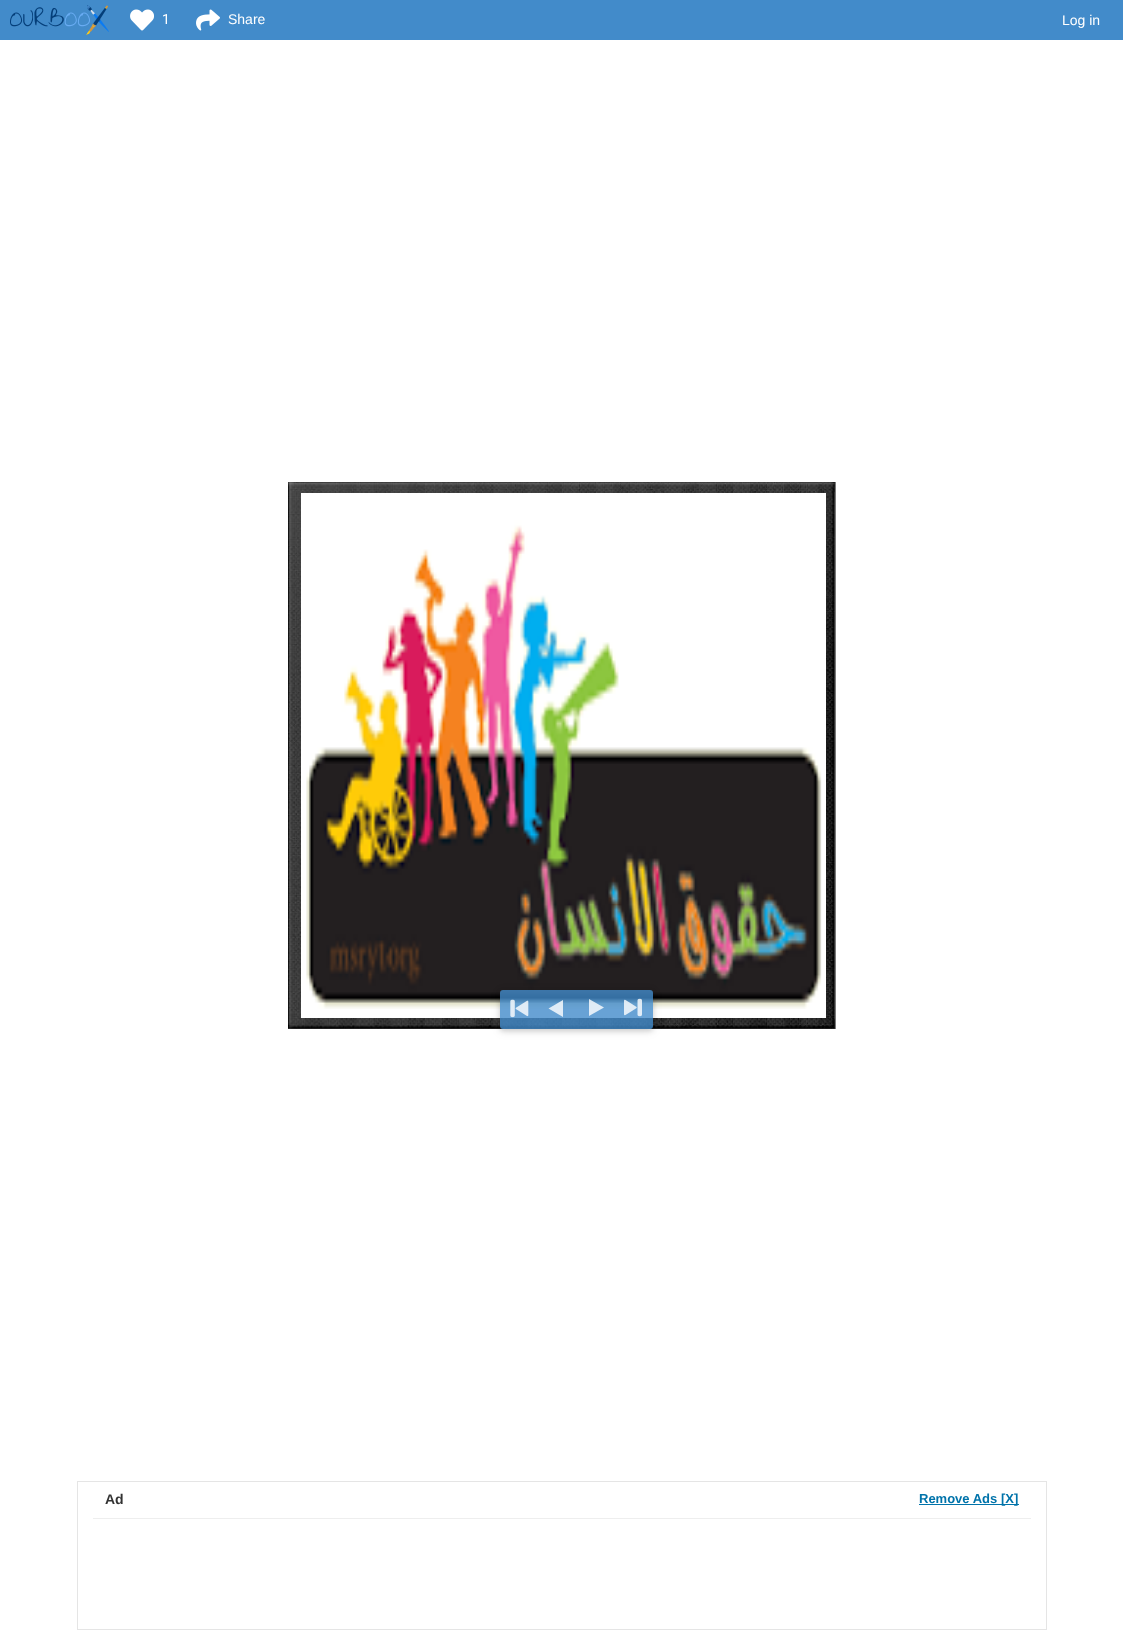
async function draw(canvas) {
	canvas.width = 1123;
	canvas.height = 1640;
	const c = canvas.getContext('2d');
	c.miterLimit = 4;
	c.fontKerning = 'normal';
	async function loadImage(src) {
		const img = new Image();
		img.src = src;
		await img.decode();
		return img;
	}

	c.fillStyle = '#fff';
	c.fillRect(0, 0, 1123, 1640);
	c.fillStyle = '#428bca';
	c.fillRect(0, 0, 1123, 40);
	c.drawImage(await loadImage('img1.png'), 10, 5, 99, 30);
	c.drawImage(await loadImage('img2.png'), 130, 9, 24, 22);
	c.font = '14px Roboto';
	c.fillStyle = '#fff';
	c.fillText('1', 162, 24);
	c.drawImage(await loadImage('img3.png'), 196, 9, 24, 22);
	c.font = '14px Liberation Sans';
	c.fillText('Share', 228, 24);
	c.fillText('Log in', 1062, 25);
	c.fillStyle = '#7b7b7b';
	c.fillRect(834, 482, 2, 547);
	c.drawImage(await loadImage('img4.png'), 288, 482, 547, 547);
	c.drawImage(await loadImage('img5.png'), 288, 482, 547, 547);
	c.drawImage(await loadImage('img6.png'), 301, 493, 525, 525);
	c.save();
	c.beginPath();
	c.moveTo(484, 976);
	c.lineTo(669, 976);
	c.lineTo(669, 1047);
	c.lineTo(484, 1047);
	c.closePath();
	c.moveTo(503, 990);
	c.lineTo(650, 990);
	c.bezierCurveTo(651.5, 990, 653, 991.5, 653, 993);
	c.lineTo(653, 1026);
	c.bezierCurveTo(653, 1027.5, 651.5, 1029, 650, 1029);
	c.lineTo(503, 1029);
	c.bezierCurveTo(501.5, 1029, 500, 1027.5, 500, 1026);
	c.lineTo(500, 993);
	c.bezierCurveTo(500, 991.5, 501.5, 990, 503, 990);
	c.closePath();
	c.clip('evenodd');
	c.fillStyle = '#0000001a';
	c.filter = 'blur(5px)';
	c.beginPath();
	c.roundRect(500, 992, 153, 39, 3);
	c.fill();
	c.filter = 'none';
	c.restore();
	c.save();
	c.beginPath();
	c.moveTo(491, 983);
	c.lineTo(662, 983);
	c.lineTo(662, 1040);
	c.lineTo(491, 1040);
	c.closePath();
	c.moveTo(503, 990);
	c.lineTo(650, 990);
	c.bezierCurveTo(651.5, 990, 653, 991.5, 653, 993);
	c.lineTo(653, 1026);
	c.bezierCurveTo(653, 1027.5, 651.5, 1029, 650, 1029);
	c.lineTo(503, 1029);
	c.bezierCurveTo(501.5, 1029, 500, 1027.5, 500, 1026);
	c.lineTo(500, 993);
	c.bezierCurveTo(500, 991.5, 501.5, 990, 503, 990);
	c.closePath();
	c.clip('evenodd');
	c.fillStyle = '#00000021';
	c.filter = 'blur(2.5px)';
	c.beginPath();
	c.roundRect(500, 992, 153, 39, 3);
	c.fill();
	c.filter = 'none';
	c.restore();
	c.fillStyle = '#428bcacc';
	c.beginPath();
	c.roundRect(500, 990, 153, 39, 3);
	c.fill();
	c.drawImage(await loadImage('img7.png'), 510, 999, 19, 19);
	c.fillStyle = '#ffffffcc';
	c.beginPath();
	c.moveTo(563, 1017);
	c.lineTo(548.5, 1008.5);
	c.lineTo(563, 1000);
	c.closePath();
	c.fill();
	c.beginPath();
	c.moveTo(589, 999);
	c.lineTo(604, 1007.5);
	c.lineTo(589, 1016);
	c.closePath();
	c.fill();
	c.drawImage(await loadImage('img8.png'), 624, 998, 18, 19);
	c.strokeStyle = '#e5e5e5';
	c.strokeRect(77.5, 1481.5, 969, 148);
	c.fillStyle = '#eee';
	c.fillRect(93, 1518, 938, 1);
	c.font = 'bold 14px Liberation Sans';
	c.fillStyle = '#333';
	c.fillText('Ad', 105, 1504);
	c.fillStyle = '#0073aa';
	c.fillRect(919, 1504, 100, 1);
	c.font = 'bold 13px Liberation Sans';
	c.fillText('Remove Ads [X]', 919, 1503);
}

draw(document.querySelector('canvas'));
